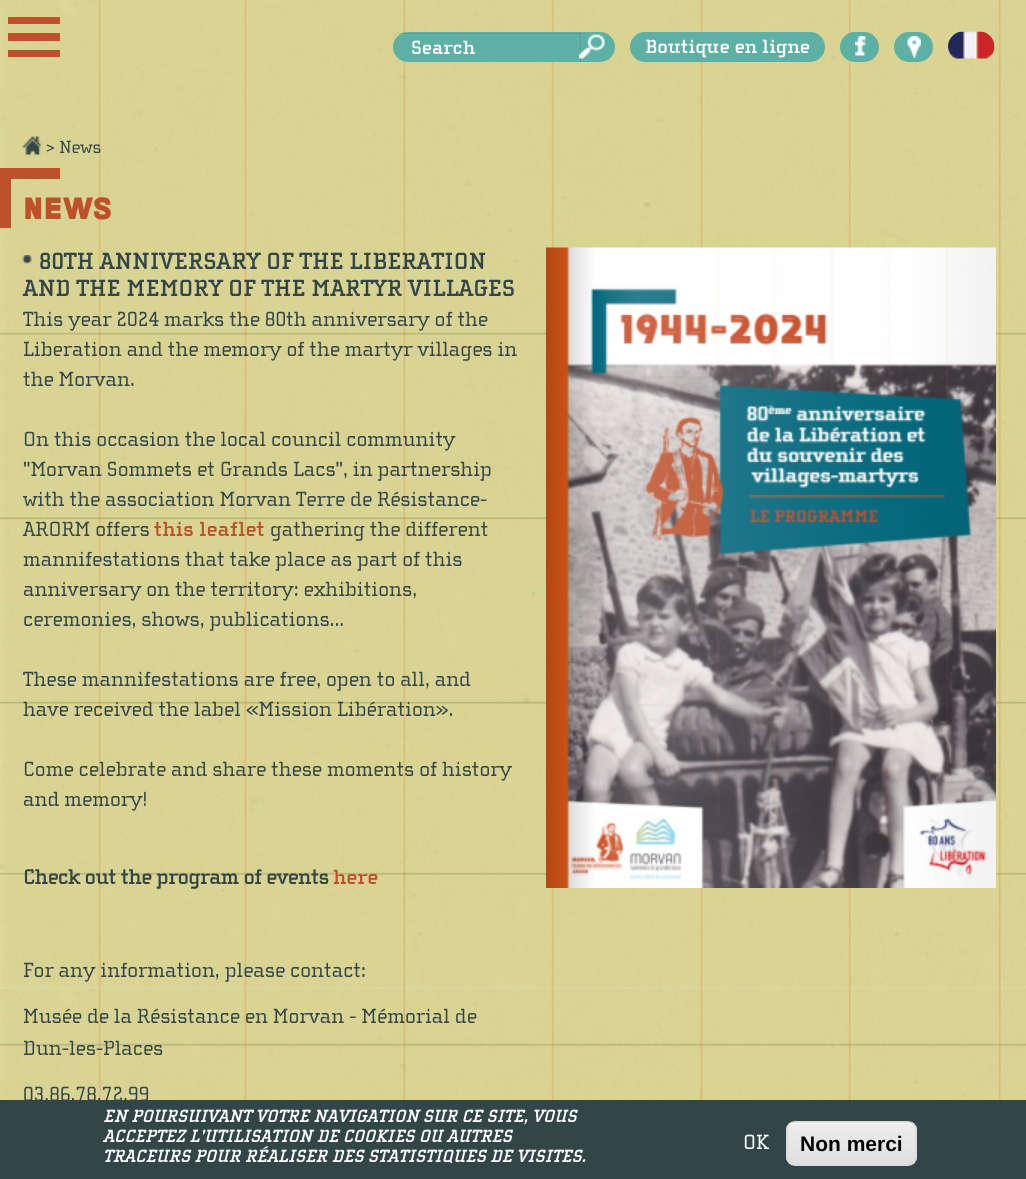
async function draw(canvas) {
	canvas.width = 1026;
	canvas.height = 1179;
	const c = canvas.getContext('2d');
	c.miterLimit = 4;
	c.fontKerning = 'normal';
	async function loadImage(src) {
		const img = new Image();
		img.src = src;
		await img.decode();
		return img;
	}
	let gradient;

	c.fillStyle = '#fff';
	c.fillRect(0, 0, 1026, 1179);
	c.drawImage(await loadImage('img1.png'), 0, 0, 1026, 1100);
	c.drawImage(await loadImage('img2.png'), 0, 0, 1026, 1100);
	for (const [x, y, w, h, color] of [
		[8, 17, 52, 7, '#be512b'],
		[8, 33, 52, 8, '#be512b'],
		[8, 50, 52, 7, '#be512b'],
	]) {
		c.fillStyle = color;
		c.fillRect(x, y, w, h);
	}
	c.fillStyle = '#5cb0a4';
	c.beginPath();
	c.roundRect(393, 32, 222, 30, 15);
	c.fill();
	c.fillStyle = '#00000012';
	c.beginPath();
	c.moveTo(399, 34);
	c.lineTo(580, 34);
	c.lineTo(580, 63);
	c.lineTo(581, 63);
	c.lineTo(581, 33);
	c.lineTo(399, 33);
	c.bezierCurveTo(396, 33, 393, 36, 393, 39);
	c.lineTo(393, 40);
	c.bezierCurveTo(394, 37, 395, 34, 399, 34);
	c.closePath();
	c.fill();
	c.font = 'bold 19.5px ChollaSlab';
	c.fillStyle = '#fff';
	c.fillText('Search', 411, 54);
	c.drawImage(await loadImage('img3.png'), 579, 34, 26, 25);
	c.fillStyle = '#5cb0a4';
	c.beginPath();
	c.roundRect(630, 32, 195, 30, 15);
	c.fill();
	c.fillStyle = '#fff';
	c.fillText('Boutique en ligne', 645, 53);
	c.fillStyle = '#5cb0a4';
	c.beginPath();
	c.roundRect(840, 32, 39, 30, 15);
	c.fill();
	c.drawImage(await loadImage('img4.png'), 855, 36, 11, 20);
	c.beginPath();
	c.roundRect(894, 32, 39, 30, 15);
	c.fill();
	c.drawImage(await loadImage('img5.png'), 907, 36, 14, 23);
	c.drawImage(await loadImage('img6.png'), 948, 31, 47, 28);
	c.drawImage(await loadImage('img7.png'), 22, 136, 19, 19);
	c.font = '18px ChollaSlab';
	c.fillStyle = '#334647';
	c.fillText('> News', 46, 153);
	c.fillStyle = '#be512b';
	c.fillRect(0, 168, 11, 60);
	c.fillRect(11, 168, 49, 11);
	c.font = '900 18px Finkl';
	c.fillText('NEWS', 23, 219);
	c.drawImage(await loadImage('img8.png'), 22, 255, 10, 9);
	c.font = 'bold 24px ChollaSlab';
	c.fillStyle = '#334647';
	c.fillText('80TH ANNIVERSARY OF THE LIBERATION', 39, 269);
	c.fillText('AND THE MEMORY OF THE MARTYR VILLAGES', 23, 296);
	c.font = '21px ChollaSlab';
	for (const [text, x, y] of [
		['This year 2024 marks the 80th anniversary of the', 23, 326],
		['Liberation and the memory of the martyr villages in', 23, 356],
		['the Morvan.', 23, 386],
		['On this occasion the local council community', 23, 446],
		['"Morvan Sommets et Grands Lacs", in partnership', 23, 476],
		['with the association Morvan Terre de Résistance-', 23, 506],
		['ARORM offers', 23, 536],
	]) {
		c.fillText(text, x, y);
	}
	c.font = 'bold 21px ChollaSlab';
	c.fillStyle = '#be512b';
	c.fillText('this leaflet', 154, 536);
	c.font = '21px ChollaSlab';
	c.fillStyle = '#334647';
	for (const [text, x, y] of [
		['gathering the different', 270, 536],
		['mannifestations that take place as part of this', 23, 566],
		['anniversary on the territory: exhibitions,', 23, 596],
		['ceremonies, shows, publications...', 23, 626],
		['These mannifestations are free, open to all, and', 23, 686],
		['have received the label «Mission Libération».', 23, 716],
		['Come celebrate and share these moments of history', 23, 776],
		['and memory!', 23, 806],
	]) {
		c.fillText(text, x, y);
	}
	c.font = 'bold 21px "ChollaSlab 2"';
	c.fillText('Check out the program of events', 23, 884);
	c.font = 'bold 21px ChollaSlab';
	c.fillStyle = '#be512b';
	c.fillText('here', 333, 884);
	c.font = '21px ChollaSlab';
	c.fillStyle = '#334647';
	for (const [text, x, y] of [
		['For any information, please contact:', 23, 977],
		['Musée de la Résistance en Morvan - Mémorial de', 23, 1023],
		['Dun-les-Places', 23, 1055],
		['03.86.78.72.99', 23, 1101],
	]) {
		c.fillText(text, x, y);
	}
	c.drawImage(await loadImage('img9.png'), 546, 247, 450, 641);
	c.fillRect(0, 1100, 1026, 79);
	c.font = 'italic bold 18px ChollaSlab';
	c.fillStyle = '#fff';
	for (const [text, x, y] of [
		['EN POURSUIVANT VOTRE NAVIGATION SUR CE SITE, VOUS', 103, 1122],
		['ACCEPTEZ L’UTILISATION DE COOKIES OU AUTRES', 103, 1142],
		['TRACEURS POUR RÉALISER DES STATISTIQUES DE VISITES.', 103, 1162],
	]) {
		c.fillText(text, x, y);
	}
	c.font = '21px ChollaSlab';
	c.fillText('OK', 743, 1149);
	c.save();
	c.beginPath();
	c.roundRect(786, 1121, 131, 45, 9);
	c.clip();
	gradient = c.createLinearGradient(851, 1122, 851, 1164);
	gradient.addColorStop(0.05, '#ededed');
	gradient.addColorStop(1, '#dfdfdf');
	c.fillStyle = gradient;
	c.fillRect(786, 1122, 131, 42);
	c.restore();
	c.beginPath();
	c.moveTo(795, 1124);
	c.lineTo(908, 1124);
	c.bezierCurveTo(912, 1124, 915, 1127, 915, 1131);
	c.bezierCurveTo(915, 1117, 896, 1122, 888, 1122);
	c.lineTo(814, 1122);
	c.bezierCurveTo(807, 1122, 788, 1117, 788, 1131);
	c.bezierCurveTo(788, 1127, 791, 1124, 795, 1124);
	c.closePath();
	c.fill();
	c.beginPath();
	c.roundRect(787, 1122, 129, 43, 8);
	c.strokeStyle = '#dcdcdc';
	c.lineWidth = 2;
	c.stroke();
	c.font = 'bold 21px Liberation Sans';
	c.fillStyle = '#000';
	c.fillText('Non merci', 800, 1151);
}

draw(document.querySelector('canvas'));
